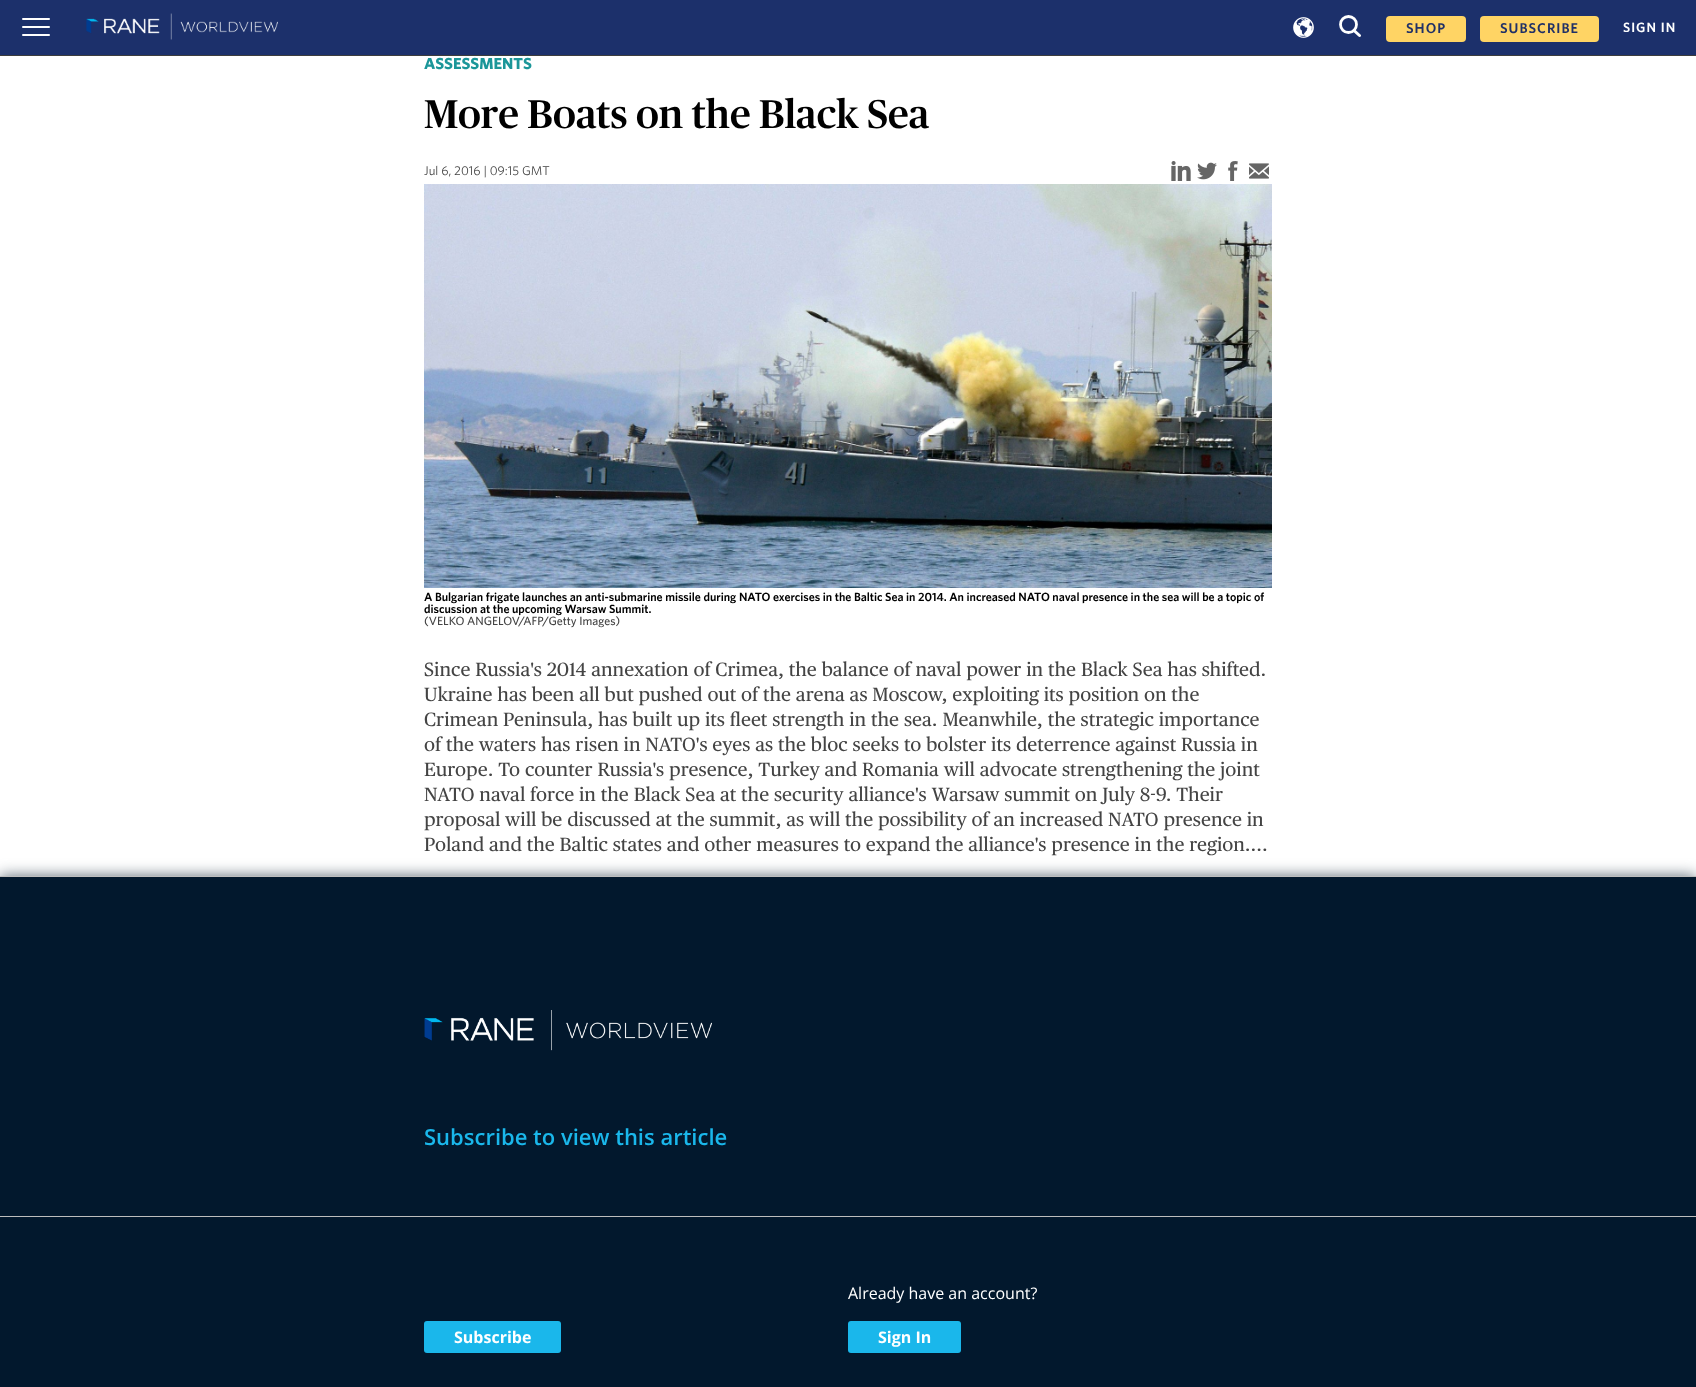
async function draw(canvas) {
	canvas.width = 1696;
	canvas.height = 1387;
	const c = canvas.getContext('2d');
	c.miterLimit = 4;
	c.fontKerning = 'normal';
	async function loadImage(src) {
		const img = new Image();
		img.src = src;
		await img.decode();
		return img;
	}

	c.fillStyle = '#fff';
	c.fillRect(0, 0, 1696, 1387);
	c.fillStyle = '#1c306b';
	c.fillRect(0, 0, 1696, 55);
	c.fillStyle = '#3d3d3d';
	c.fillRect(0, 55, 1696, 1);
	c.fillStyle = '#fff';
	c.beginPath();
	c.roundRect(22, 26, 28, 2, 1);
	c.fill();
	c.beginPath();
	c.roundRect(22, 18, 28, 2, 1);
	c.fill();
	c.beginPath();
	c.roundRect(22, 34, 28, 2, 1);
	c.fill();
	c.drawImage(await loadImage('img1.png'), 86, 13, 192, 27);
	c.drawImage(await loadImage('img2.png'), 1293, 17, 21, 21);
	c.beginPath();
	c.moveTo(1354, 30.5);
	c.lineTo(1359.5, 35.5);
	c.strokeStyle = '#fff';
	c.lineWidth = 3;
	c.lineCap = 'round';
	c.lineJoin = 'round';
	c.stroke();
	c.beginPath();
	c.arc(1348.5, 24.5, 8, 0, 2 * Math.PI);
	c.lineWidth = 2.8;
	c.stroke();
	c.fillStyle = '#ffd464';
	c.beginPath();
	c.roundRect(1386, 16, 80, 26, 4);
	c.fill();
	c.letterSpacing = '1px';
	c.font = '600 14.25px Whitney';
	c.fillStyle = '#203067';
	c.fillText('SHOP', 1406, 33);
	c.fillStyle = '#ffd464';
	c.beginPath();
	c.roundRect(1480, 16, 119, 26, 4);
	c.fill();
	c.fillStyle = '#203067';
	c.fillText('SUBSCRIBE', 1500, 33);
	c.font = '600 13.5px Whitney';
	c.fillStyle = '#fff';
	c.fillText('SIGN IN', 1623, 32);
	c.letterSpacing = '0px';
	c.font = 'bold 16px Whitney';
	c.fillStyle = '#1b9699';
	c.fillText('ASSESSMENTS', 424, 69);
	c.font = '500 40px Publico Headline';
	c.fillStyle = '#000';
	c.fillText('More Boats on the Black Sea', 424, 128);
	c.font = '12.75px Whitney';
	c.fillStyle = '#444';
	c.fillText('Jul 6, 2016 | 09:15 GMT', 424, 175);
	c.drawImage(await loadImage('img3.png'), 1171, 161, 20, 20);
	c.drawImage(await loadImage('img4.png'), 1197, 162, 20, 18);
	c.drawImage(await loadImage('img5.png'), 1228, 161, 10, 20);
	c.drawImage(await loadImage('img6.png'), 1249, 163, 20, 16);
	c.drawImage(await loadImage('img7.png'), 424, 184, 848, 404);
	c.font = '600 12px Whitney';
	c.fillStyle = '#000';
	c.fillText('A Bulgarian frigate launches an anti-submarine missile during NATO exercises in the Baltic Sea in 2014. An increased NATO naval presence in the sea will be a topic of', 424, 601);
	c.fillText('discussion at the upcoming Warsaw Summit.', 424, 613);
	c.font = '500 12px Whitney';
	c.fillStyle = '#444';
	c.fillText('(VELKO ANGELOV/AFP/Getty Images)', 424, 625);
	c.font = '19.2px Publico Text';
	for (const [text, x, y] of [
		['Since Russia\'s 2014 annexation of Crimea, the balance of naval power in the Black Sea has shifted.', 424, 676],
		['Ukraine has been all but pushed out of the arena as Moscow, exploiting its position on the', 424, 701],
		['Crimean Peninsula, has built up its fleet strength in the sea. Meanwhile, the strategic importance', 424, 726],
		['of the waters has risen in NATO\'s eyes as the bloc seeks to bolster its deterrence against Russia in', 424, 751],
		['Europe. To counter Russia\'s presence, Turkey and Romania will advocate strengthening the joint', 424, 776],
		['NATO naval force in the Black Sea at the security alliance\'s Warsaw summit on July 8-9. Their', 424, 801],
		['proposal will be discussed at the summit, as will the possibility of an increased NATO presence in', 424, 826],
	]) {
		c.fillText(text, x, y);
	}
	c.fillStyle = '#5c6975';
	c.filter = 'blur(7.5px)';
	c.beginPath();
	c.rect(0, 876, 1696, 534);
	c.fill();
	c.filter = 'none';
	c.fillStyle = '#444';
	c.fillText('Poland and the Baltic states and other measures to expand the alliance\'s presence in the region....', 424, 851);
	c.fillStyle = '#02182d';
	c.fillRect(0, 877, 1696, 510);
	c.fillStyle = '#bdbdbd';
	c.fillRect(0, 876, 1696, 1);
	c.drawImage(await loadImage('img8.png'), 424, 1010, 288, 41);
	c.font = '600 22px Open Sans';
	c.fillStyle = '#1ab7eb';
	c.fillText('Subscribe to view this article', 424, 1145);
	c.fillStyle = '#bdbdbd';
	c.fillRect(0, 1216, 1696, 1);
	c.fillStyle = '#1ab7eb';
	c.beginPath();
	c.roundRect(424, 1321, 137, 32, 3);
	c.fill();
	c.font = 'bold 16px Open Sans';
	c.fillStyle = '#fff';
	c.fillText('Subscribe', 454, 1343);
	c.font = '16px Open Sans';
	c.fillText('Already have an account?', 848, 1299);
	c.fillStyle = '#1ab7eb';
	c.beginPath();
	c.roundRect(848, 1321, 113, 32, 3);
	c.fill();
	c.font = 'bold 16px Open Sans';
	c.fillStyle = '#fff';
	c.fillText('Sign In', 878, 1343);
}

draw(document.querySelector('canvas'));
